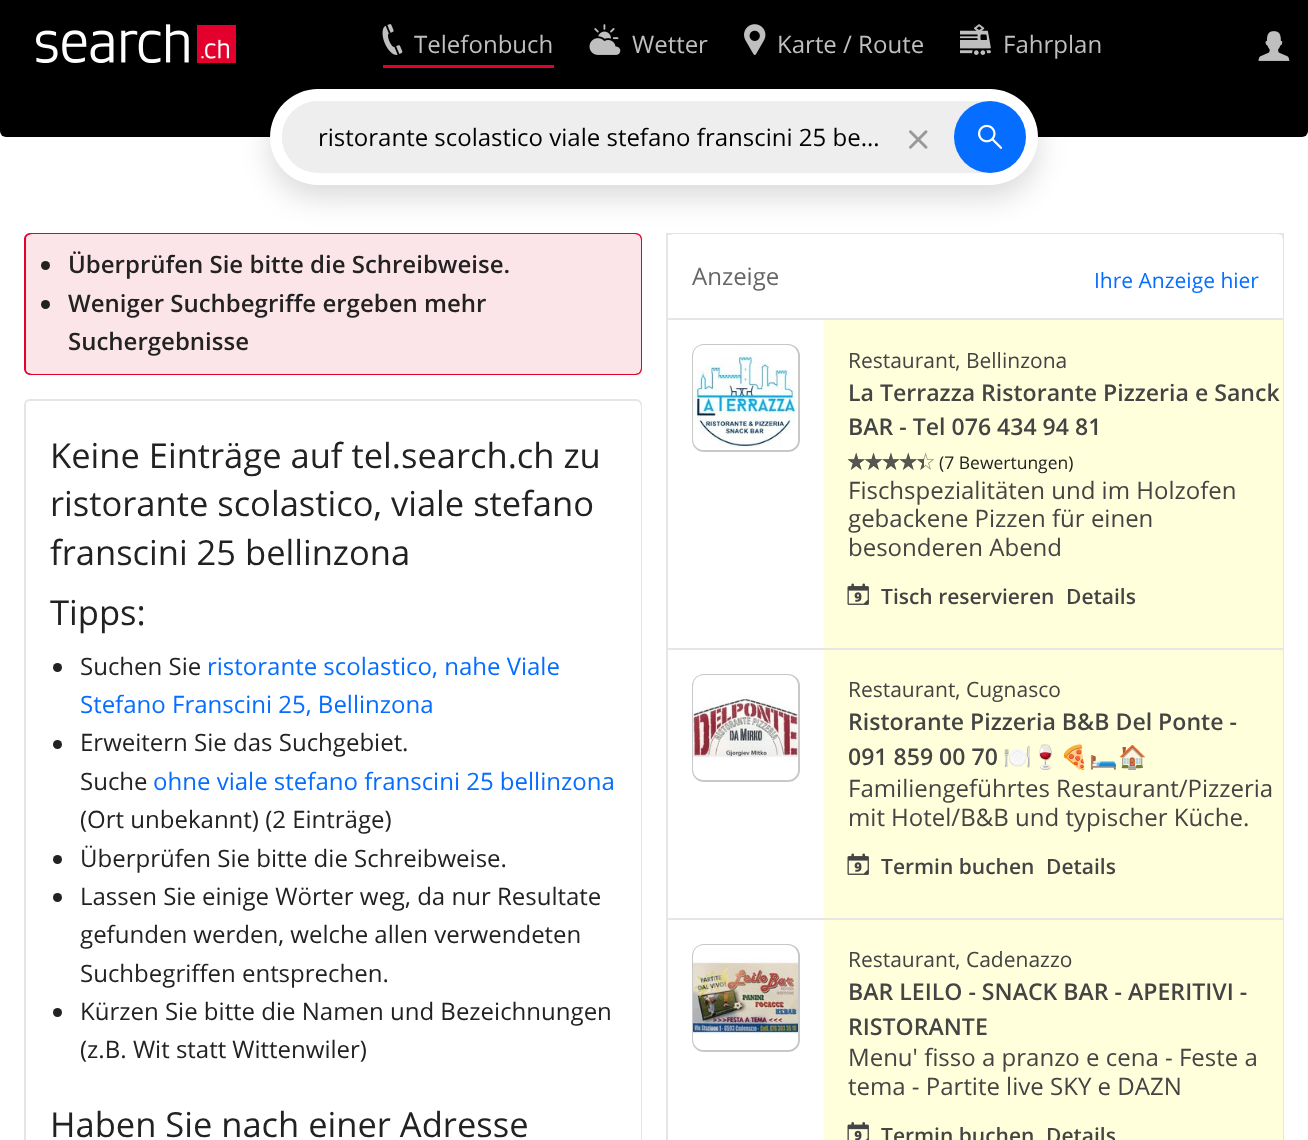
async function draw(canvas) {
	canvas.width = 1308;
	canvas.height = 1140;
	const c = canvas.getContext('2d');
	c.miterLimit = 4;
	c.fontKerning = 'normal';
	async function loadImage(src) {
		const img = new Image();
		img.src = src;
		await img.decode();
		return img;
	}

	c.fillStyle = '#fff';
	c.fillRect(0, 0, 1308, 1140);
	c.fillStyle = '#000';
	c.fillRect(0, 0, 1308, 89);
	c.drawImage(await loadImage('img1.png'), 36, 24, 200, 39);
	c.fillStyle = '#e4002c';
	c.fillRect(383, 65, 171, 3);
	c.drawImage(await loadImage('img2.png'), 382, 24, 21, 31);
	c.font = '24px Open Sans';
	c.fillStyle = '#bfbfbf';
	c.fillText('Telefonbuch', 414, 53);
	c.drawImage(await loadImage('img3.png'), 589, 24, 32, 31);
	c.fillText('Wetter', 632, 53);
	c.drawImage(await loadImage('img4.png'), 744, 24, 22, 31);
	c.fillText('Karte / Route', 777, 53);
	c.drawImage(await loadImage('img5.png'), 960, 24, 31, 31);
	c.fillText('Fahrplan', 1003, 53);
	c.drawImage(await loadImage('img6.png'), 1258, 31, 32, 30);
	c.fillStyle = '#000';
	c.beginPath();
	c.roundRect(0, 89, 1308, 48, [0, 0, 6, 6]);
	c.fill();
	c.fillStyle = '#fce5e9';
	c.beginPath();
	c.roundRect(25, 234, 616, 140, 5);
	c.fill();
	c.strokeStyle = '#e4002c';
	c.lineWidth = 2;
	c.stroke();
	c.save();
	c.beginPath();
	c.roundRect(26, 234, 615, 140, 5);
	c.clip();
	c.beginPath();
	c.roundRect(26, 234, 615, 140, 6);
	c.fill();
	c.restore();
	c.strokeStyle = '#e5e5e5';
	c.strokeRect(667, 234, 616, 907);
	c.fillStyle = '#fff';
	c.beginPath();
	c.roundRect(668, 234, 615, 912, 6);
	c.fill();
	c.fillStyle = '#00000026';
	c.filter = 'blur(15px)';
	c.beginPath();
	c.roundRect(270, 101, 768, 96, 48);
	c.fill();
	c.filter = 'none';
	c.fillStyle = '#fff';
	c.beginPath();
	c.roundRect(270, 89, 768, 96, 48);
	c.fill();
	c.fillStyle = '#eee';
	c.beginPath();
	c.roundRect(282, 101, 744, 72, 36);
	c.fill();
	c.beginPath();
	c.roundRect(282, 101, 600, 72, 36);
	c.fill();
	c.fillStyle = '#000';
	c.fillText('ristorante scolastico viale stefano franscini 25 be…', 318, 146);
	c.drawImage(await loadImage('img7.png'), 909, 130, 19, 19);
	c.fillStyle = '#056dff';
	c.beginPath();
	c.arc(990, 137, 36, 0, 2 * Math.PI);
	c.fill();
	c.drawImage(await loadImage('img8.png'), 978, 124, 25, 25);
	c.fillStyle = '#222';
	c.beginPath();
	c.arc(45.5, 265.5, 4.5, 0, 2 * Math.PI);
	c.fill();
	c.font = '600 24px Open Sans';
	c.fillText('Überprüfen Sie bitte die Schreibweise.', 68, 273);
	c.beginPath();
	c.arc(45.5, 304.5, 4.5, 0, 2 * Math.PI);
	c.fill();
	c.fillText('Weniger Suchbegriffe ergeben mehr', 68, 312);
	c.fillText('Suchergebnisse', 68, 350);
	c.beginPath();
	c.roundRect(25, 400, 616, 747, 5);
	c.stroke();
	c.save();
	c.beginPath();
	c.roundRect(26, 401, 615, 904, 5);
	c.clip();
	c.fillStyle = '#fff';
	c.beginPath();
	c.roundRect(26, 401, 615, 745, 6);
	c.fill();
	c.restore();
	c.font = '34.5px Open Sans';
	for (const [text, x, y] of [
		['Keine Einträge auf tel.search.ch zu', 50, 468],
		['ristorante scolastico, viale stefano', 50, 516],
		['franscini 25 bellinzona', 50, 565],
		['Tipps:', 50, 625],
	]) {
		c.fillText(text, x, y);
	}
	c.beginPath();
	c.arc(57.5, 667.5, 4.5, 0, 2 * Math.PI);
	c.fill();
	c.font = '24px Open Sans';
	c.fillText('Suchen Sie', 80, 675);
	c.fillStyle = '#056dff';
	c.fillText('ristorante scolastico, nahe Viale', 207, 675);
	c.fillText('Stefano Franscini 25, Bellinzona', 80, 713);
	c.fillStyle = '#222';
	c.beginPath();
	c.arc(57.5, 744.5, 4.5, 0, 2 * Math.PI);
	c.fill();
	c.fillText('Erweitern Sie das Suchgebiet.', 80, 751);
	c.fillText('Suche', 80, 790);
	c.fillStyle = '#056dff';
	c.fillText('ohne viale stefano franscini 25 bellinzona', 153, 790);
	c.fillStyle = '#222';
	c.fillText('(Ort unbekannt) (2 Einträge)', 80, 828);
	c.beginPath();
	c.arc(57.5, 859.5, 4.5, 0, 2 * Math.PI);
	c.fill();
	c.fillText('Überprüfen Sie bitte die Schreibweise.', 80, 867);
	c.beginPath();
	c.arc(57.5, 897.5, 4.5, 0, 2 * Math.PI);
	c.fill();
	for (const [text, x, y] of [
		['Lassen Sie einige Wörter weg, da nur Resultate', 80, 905],
		['gefunden werden, welche allen verwendeten', 80, 943],
		['Suchbegriffen entsprechen.', 80, 982],
	]) {
		c.fillText(text, x, y);
	}
	c.beginPath();
	c.arc(57.5, 1012.5, 4.5, 0, 2 * Math.PI);
	c.fill();
	c.fillText('Kürzen Sie bitte die Namen und Bezeichnungen', 80, 1020);
	c.fillText('(z.B. Wit statt Wittenwiler)', 80, 1058);
	c.font = '34.5px Open Sans';
	c.fillText('Haben Sie nach einer Adresse', 50, 1137);
	c.font = '24px Open Sans';
	c.fillStyle = '#666';
	c.fillText('Anzeige', 692, 285);
	c.font = '21px Open Sans';
	c.fillStyle = '#056dff';
	c.fillText('Ihre Anzeige hier', 1094, 288);
	c.fillStyle = '#e6e6e6';
	c.fillRect(668, 318, 615, 2);
	c.beginPath();
	c.roundRect(693, 345, 106, 106, 11);
	c.strokeStyle = '#c8c8c8';
	c.stroke();
	c.drawImage(await loadImage('img9.png'), 693, 345, 105, 105);
	c.fillStyle = '#ffffdb';
	c.fillRect(824, 320, 459, 328);
	c.fillStyle = '#444';
	c.fillText('Restaurant, Bellinzona', 848, 368);
	c.font = '600 23.1px Open Sans';
	c.fillText('La Terrazza Ristorante Pizzeria e Sanck', 848, 401);
	c.fillText('BAR - Tel 076 434 94 81', 848, 435);
	c.drawImage(await loadImage('img10.png'), 847, 452, 88, 18);
	c.drawImage(await loadImage('img11.png'), 848, 452, 76, 18);
	c.font = '17.5px Open Sans';
	c.fillStyle = '#222';
	c.fillText('(7 Bewertungen)', 939, 469);
	c.font = '24px Open Sans';
	c.fillStyle = '#444';
	for (const [text, x, y] of [
		['Fischspezialitäten und im Holzofen', 848, 499],
		['gebackene Pizzen für einen', 848, 527],
		['besonderen Abend', 848, 556],
	]) {
		c.fillText(text, x, y);
	}
	c.drawImage(await loadImage('img12.png'), 847, 583, 22, 22);
	c.font = '600 21px Open Sans';
	c.fillText('Tisch reservieren', 881, 604);
	c.fillText('Details', 1066, 604);
	c.fillStyle = '#e6e6e6';
	c.fillRect(668, 648, 615, 2);
	c.beginPath();
	c.roundRect(693, 675, 106, 106, 11);
	c.stroke();
	c.drawImage(await loadImage('img13.png'), 693, 675, 105, 105);
	c.fillStyle = '#ffffdb';
	c.fillRect(824, 650, 459, 268);
	c.font = '21px Open Sans';
	c.fillStyle = '#444';
	c.fillText('Restaurant, Cugnasco', 848, 697);
	c.font = '600 23.1px Open Sans';
	c.fillText('Ristorante Pizzeria B&B Del Ponte -', 848, 730);
	c.fillText('091 859 00 70', 848, 765);
	c.font = 'bold 23.1px Noto Color Emoji';
	c.fillText('🍽️🍷🍕🛏️🏠', 1003, 765);
	c.font = '24px Open Sans';
	c.fillText('Familiengeführtes Restaurant/Pizzeria', 848, 797);
	c.fillText('mit Hotel/B&B und typischer Küche.', 848, 826);
	c.drawImage(await loadImage('img12.png'), 847, 853, 22, 22);
	c.font = '600 21px Open Sans';
	c.fillText('Termin buchen', 881, 874);
	c.fillText('Details', 1046, 874);
	c.fillStyle = '#e6e6e6';
	c.fillRect(668, 918, 615, 2);
	c.beginPath();
	c.roundRect(693, 945, 106, 106, 11);
	c.stroke();
	c.drawImage(await loadImage('img14.png'), 693, 945, 105, 105);
	c.fillStyle = '#ffffdb';
	c.fillRect(824, 920, 459, 220);
	c.font = '21px Open Sans';
	c.fillStyle = '#444';
	c.fillText('Restaurant, Cadenazzo', 848, 967);
	c.font = '600 23.1px Open Sans';
	c.fillText('BAR LEILO - SNACK BAR - APERITIVI -', 848, 1000);
	c.fillText('RISTORANTE', 848, 1035);
	c.font = '24px Open Sans';
	c.fillText('Menu\' fisso a pranzo e cena - Feste a', 848, 1066);
	c.fillText('tema - Partite live SKY e DAZN', 848, 1095);
	c.drawImage(await loadImage('img15.png'), 847, 1122, 22, 18);
	c.font = '600 21px Open Sans';
	c.fillText('Termin buchen', 881, 1143);
	c.fillText('Details', 1046, 1143);
}

draw(document.querySelector('canvas'));
